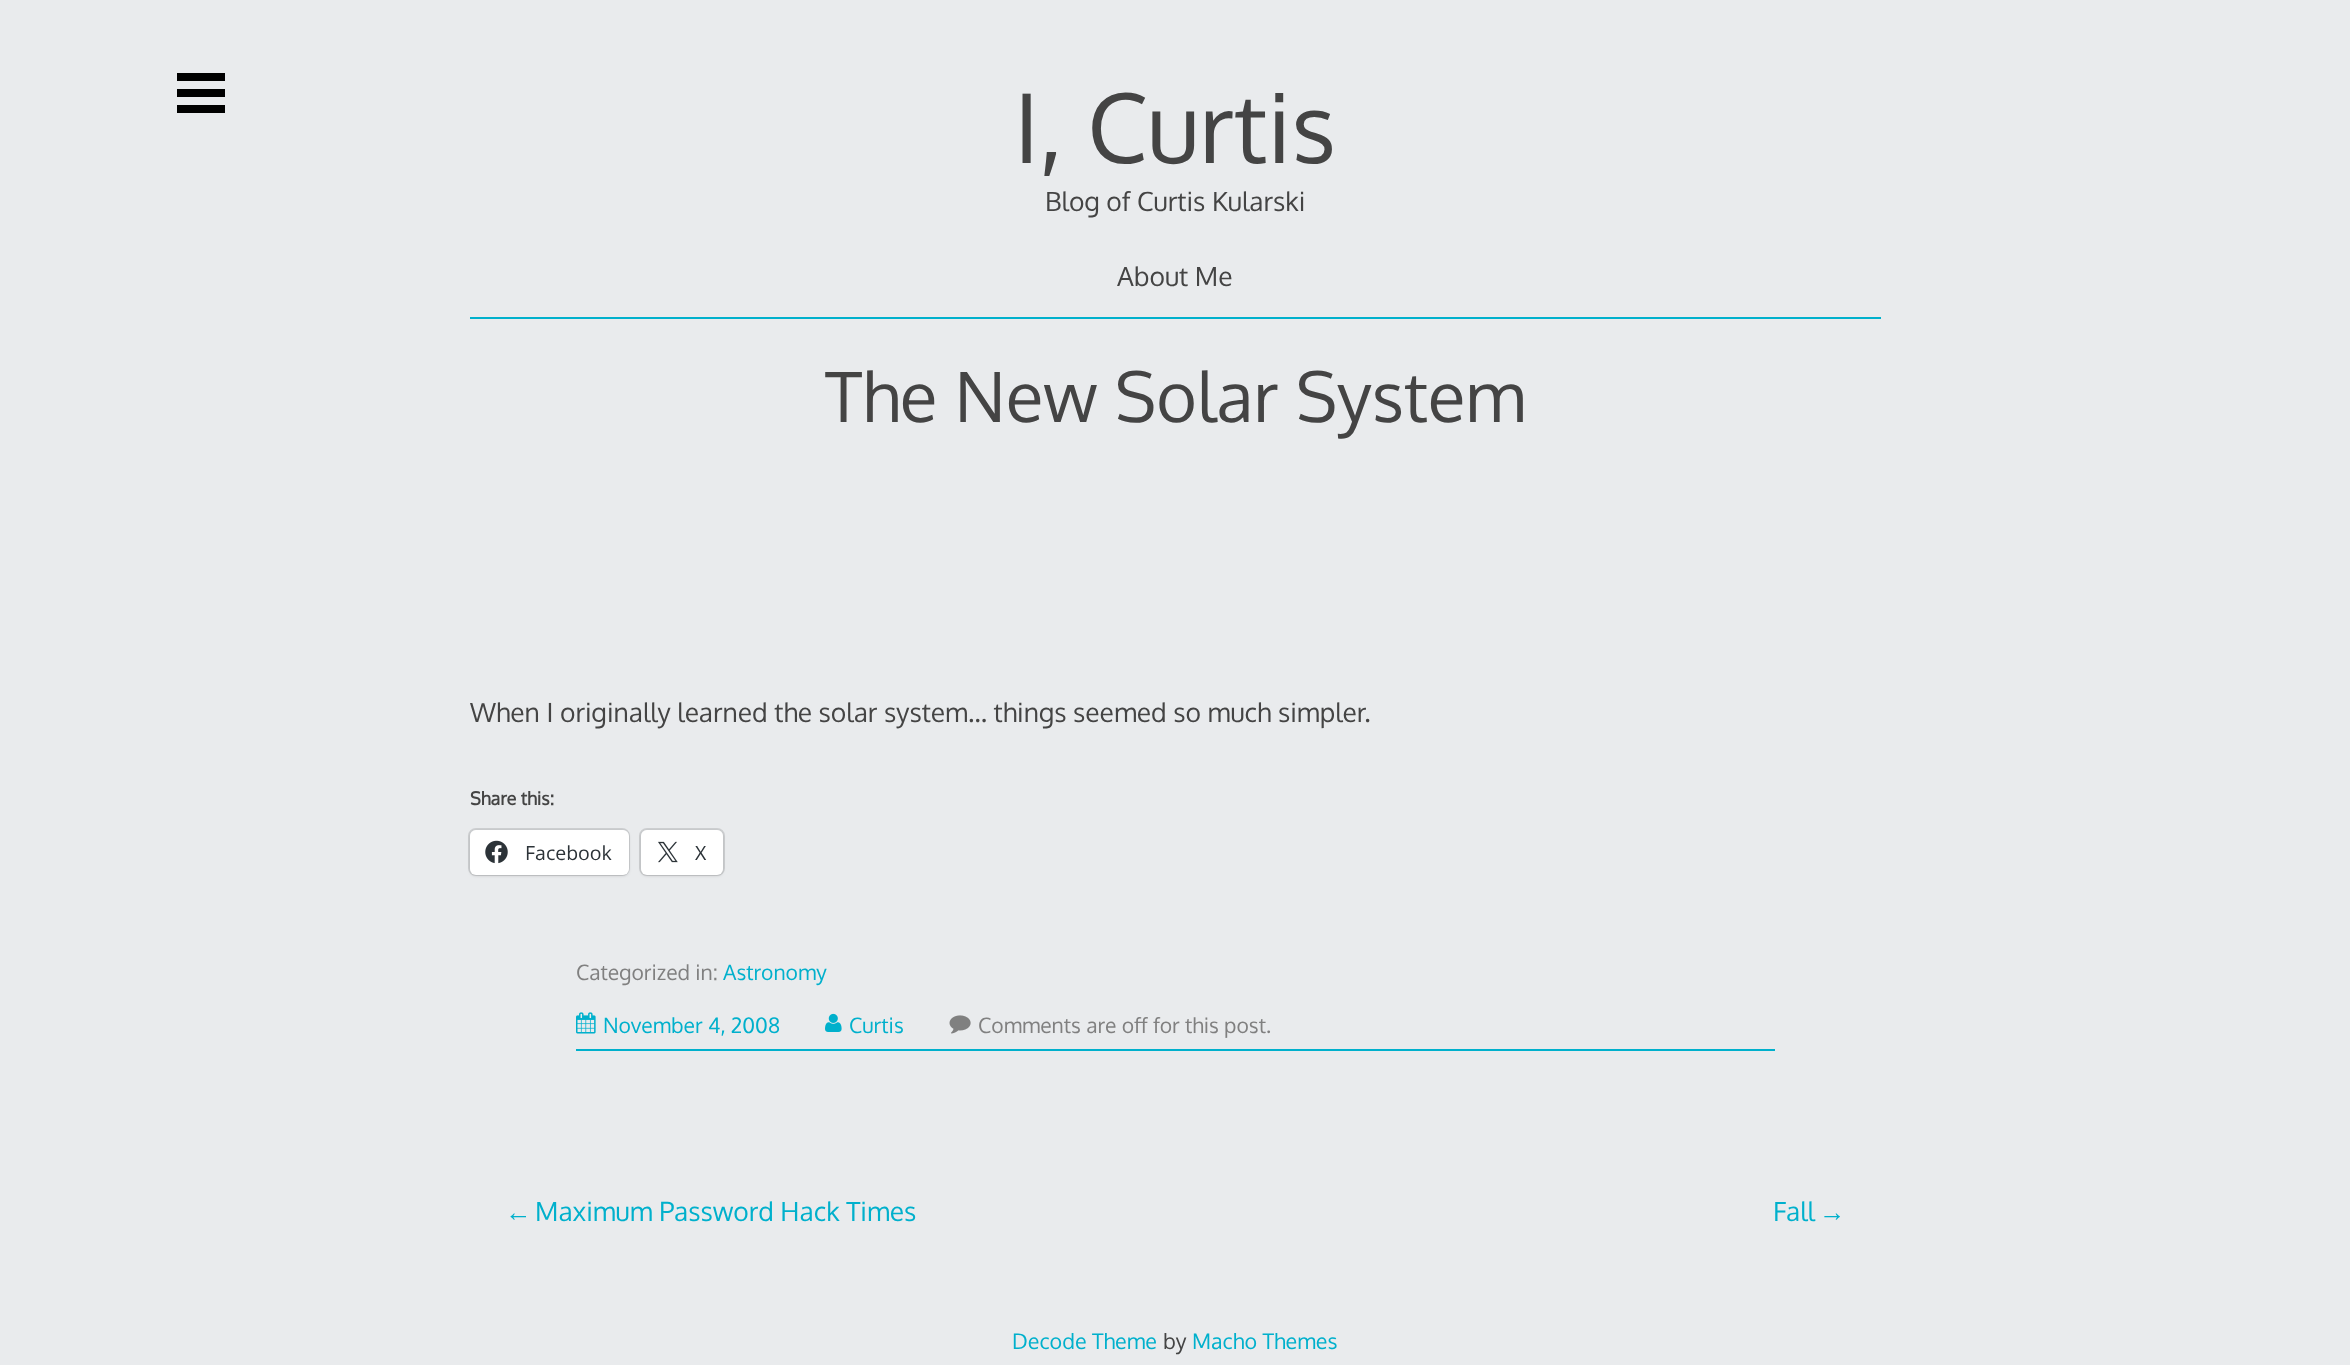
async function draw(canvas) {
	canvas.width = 2350;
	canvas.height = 1365;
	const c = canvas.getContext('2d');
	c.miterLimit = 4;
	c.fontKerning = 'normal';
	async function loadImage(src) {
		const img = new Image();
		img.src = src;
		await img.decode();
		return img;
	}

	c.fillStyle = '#e9ebed';
	c.fillRect(0, 0, 2350, 1365);
	for (const [x, y, w, h, color] of [
		[177, 73, 48, 8, '#000'],
		[177, 89, 48, 8, '#000'],
		[177, 105, 48, 8, '#000'],
		[470, 317, 1411, 2, '#00b0cc'],
	]) {
		c.fillStyle = color;
		c.fillRect(x, y, w, h);
	}
	c.font = '96px Oxygen';
	c.fillStyle = '#444';
	c.fillText('I, Curtis', 1014, 163);
	c.font = '26.4px Oxygen';
	c.fillText('Blog of Curtis Kularski', 1045, 211);
	c.fillText('About Me', 1117, 286);
	c.font = '69.25px Oxygen';
	c.fillText('The New Solar System', 825, 422);
	c.font = '26.4px Oxygen';
	c.fillText('When I originally learned the solar system… things seemed so much simpler.', 470, 722);
	c.font = 'bold 18px Oxygen';
	c.fillText('Share this:', 470, 805);
	c.beginPath();
	c.roundRect(469, 829, 160, 46, 7);
	c.strokeStyle = '#cdcfd1';
	c.lineWidth = 2;
	c.stroke();
	c.fillStyle = '#0000001f';
	c.filter = 'blur(1.5px)';
	c.beginPath();
	c.roundRect(470, 831, 159, 45, 6);
	c.fill();
	c.filter = 'none';
	c.fillStyle = '#fff';
	c.beginPath();
	c.roundRect(470, 830, 159, 45, 6);
	c.fill();
	c.drawImage(await loadImage('img1.png'), 485, 840, 23, 24);
	c.font = '19.5px Open Sans';
	c.fillStyle = '#2c3338';
	c.fillText('Facebook', 525, 860);
	c.beginPath();
	c.roundRect(640, 829, 84, 46, 7);
	c.stroke();
	c.fillStyle = '#0000001f';
	c.filter = 'blur(1.5px)';
	c.beginPath();
	c.roundRect(641, 831, 82, 45, 6);
	c.fill();
	c.filter = 'none';
	c.fillStyle = '#fff';
	c.beginPath();
	c.roundRect(641, 830, 82, 45, 6);
	c.fill();
	c.drawImage(await loadImage('img2.png'), 658, 841, 20, 22);
	c.fillStyle = '#2c3338';
	c.fillText('X', 695, 860);
	c.fillStyle = '#00b0cc';
	c.fillRect(576, 1049, 1199, 2);
	c.font = '21.1px Oxygen';
	c.fillStyle = '#808080';
	c.fillText('Categorized in:', 576, 980);
	c.fillStyle = '#00b0cc';
	c.fillText('Astronomy', 723, 980);
	c.drawImage(await loadImage('img3.png'), 576, 1012, 20, 22);
	c.fillText('November 4, 2008', 603, 1033);
	c.drawImage(await loadImage('img4.png'), 825, 1013, 17, 19);
	c.fillText('Curtis', 849, 1033);
	c.drawImage(await loadImage('img5.png'), 949, 1015, 22, 19);
	c.fillStyle = '#808080';
	c.fillText('Comments are off for this post.', 978, 1033);
	c.font = '26.4px Liberation Sans';
	c.fillStyle = '#00b0cc';
	c.fillText('←', 505, 1221);
	c.font = '26.4px Oxygen';
	c.fillText('Maximum Password Hack Times', 535, 1221);
	c.fillText('Fall', 1773, 1221);
	c.font = '26.4px Liberation Sans';
	c.fillText('→', 1819, 1221);
	c.font = '21.5px Oxygen';
	c.fillText('Decode Theme', 1012, 1349);
	c.fillStyle = '#444';
	c.fillText('by', 1163, 1349);
	c.fillStyle = '#00b0cc';
	c.fillText('Macho Themes', 1192, 1349);
}

draw(document.querySelector('canvas'));
